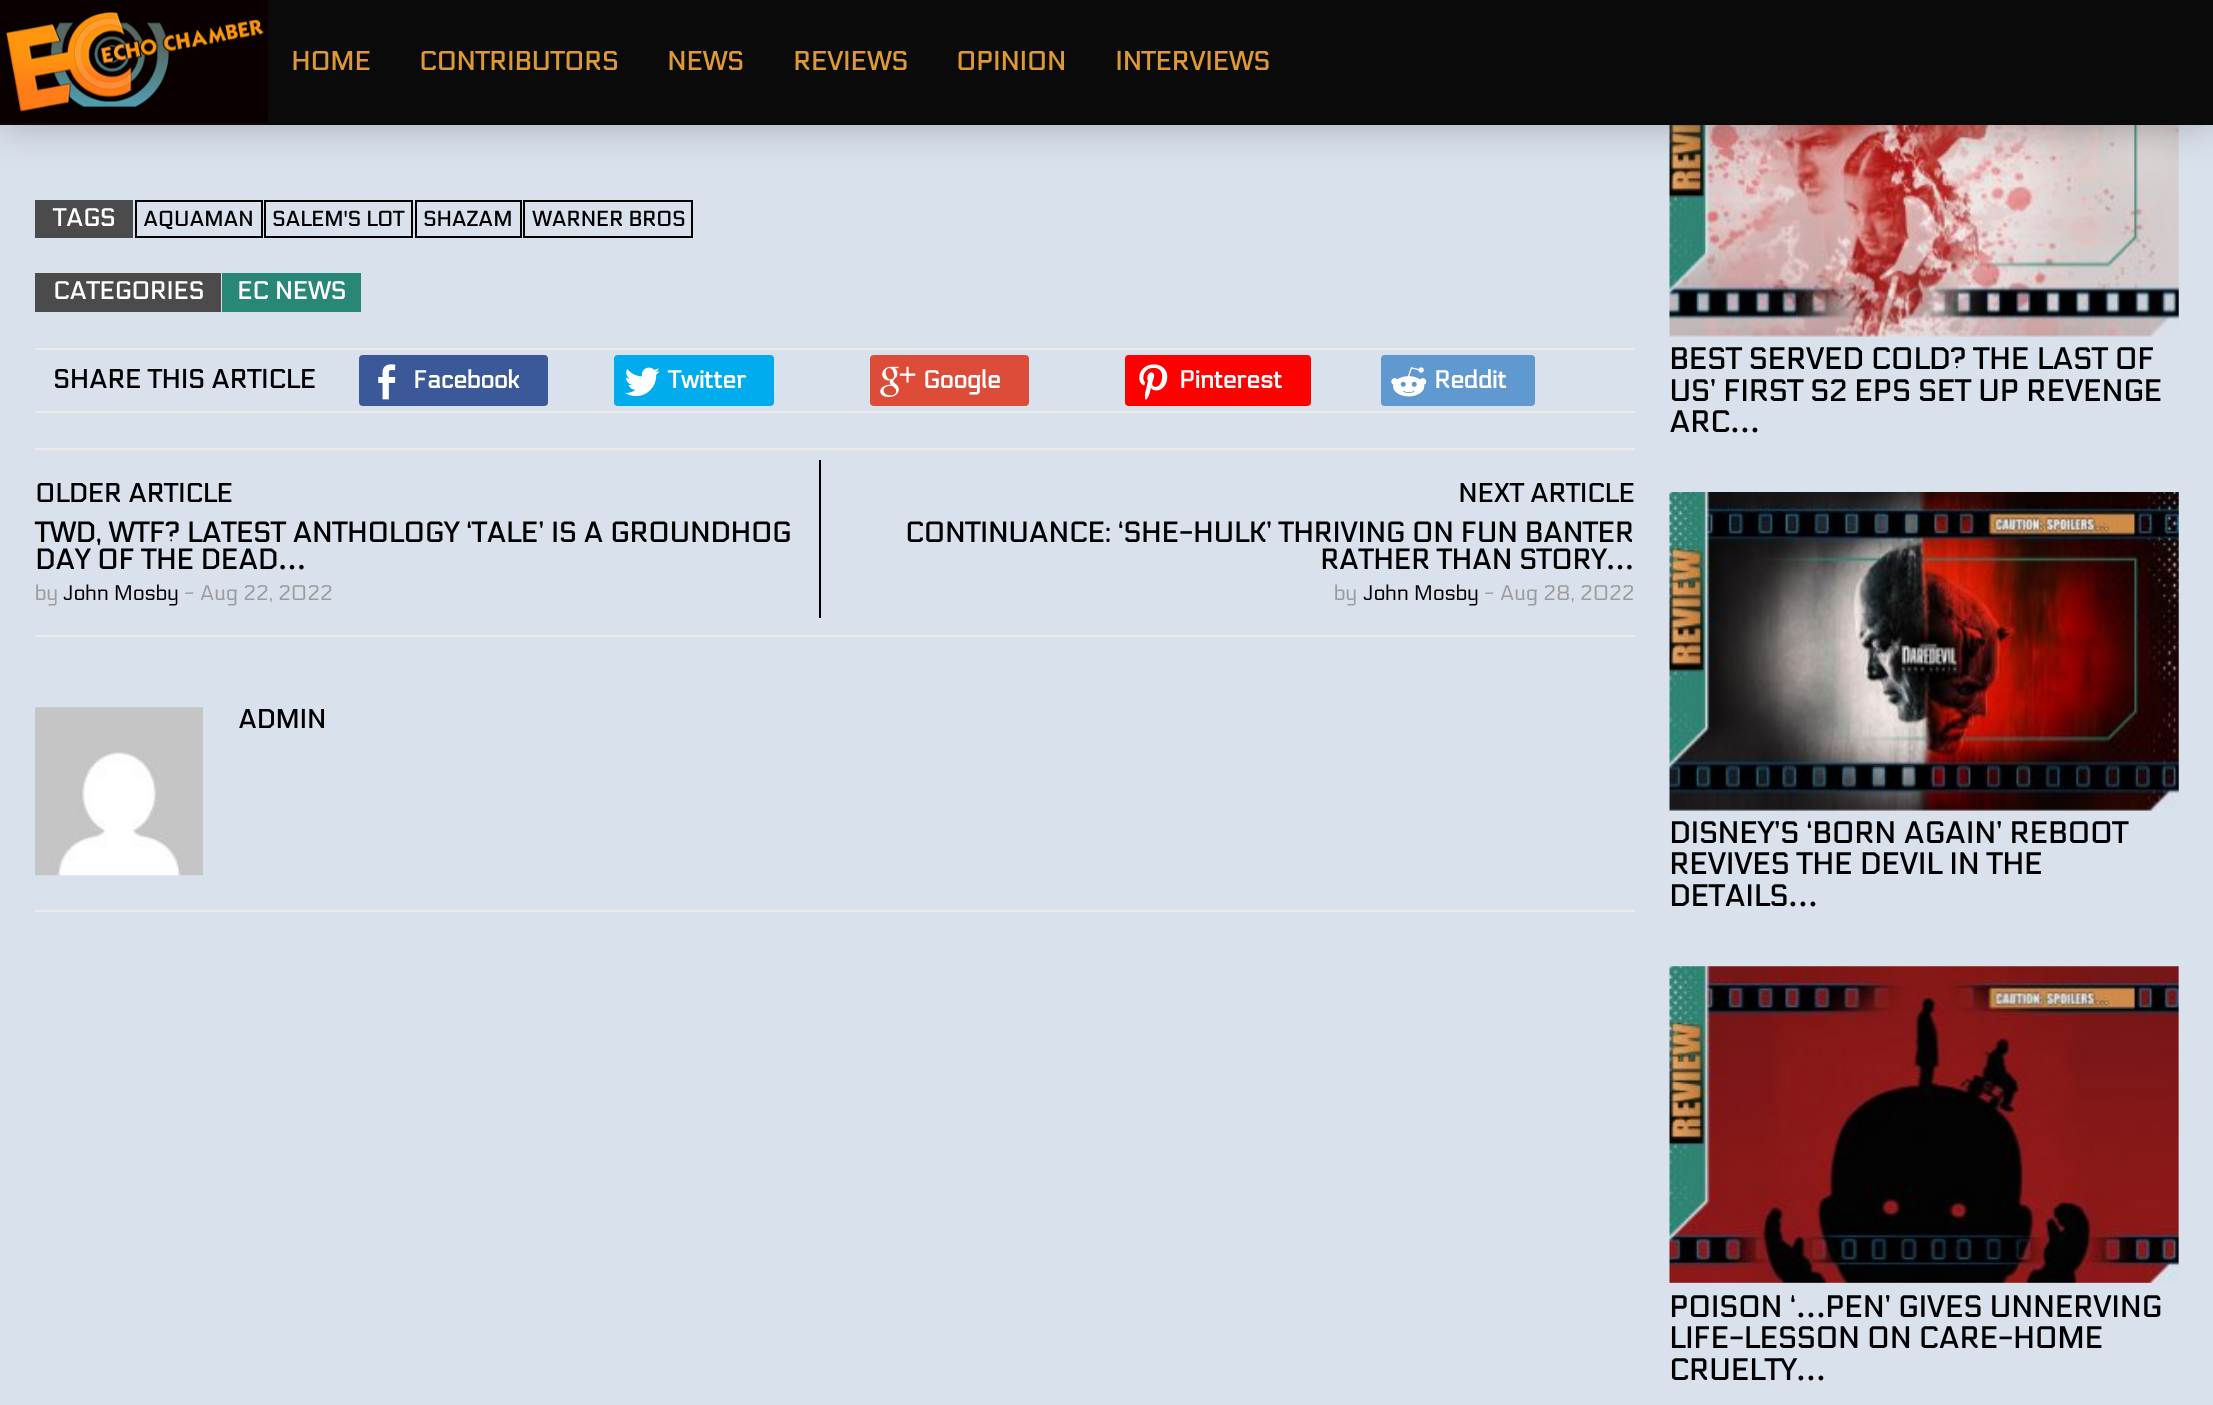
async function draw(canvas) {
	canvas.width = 2213;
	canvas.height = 1405;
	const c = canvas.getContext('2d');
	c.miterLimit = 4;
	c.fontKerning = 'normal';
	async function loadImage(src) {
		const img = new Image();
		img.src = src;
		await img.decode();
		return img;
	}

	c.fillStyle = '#d9e1ed';
	c.fillRect(0, 0, 2213, 1405);
	c.drawImage(await loadImage('img8.png'), 1669, 125, 510, 212);
	c.fillStyle = '#00000040';
	c.filter = 'blur(21px)';
	c.beginPath();
	c.rect(0, 0, 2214, 124);
	c.fill();
	c.filter = 'none';
	for (const [x, y, w, h, color] of [
		[268, 0, 1945, 123, '#0a0a0a'],
		[0, 123, 2213, 2, '#0a0a0a'],
		[0, 0, 268, 123, '#0a0000'],
	]) {
		c.fillStyle = color;
		c.fillRect(x, y, w, h);
	}
	c.drawImage(await loadImage('img1.png'), 5, 12, 259, 100);
	c.font = 'bold 26.25px Electrolize';
	c.fillStyle = '#d93';
	for (const [text, x, y] of [
		['HOME', 291, 70],
		['CONTRIBUTORS', 419, 70],
		['NEWS', 667, 70],
		['REVIEWS', 793, 70],
		['OPINION', 956, 70],
		['INTERVIEWS', 1115, 70],
	]) {
		c.fillText(text, x, y);
	}
	c.fillStyle = '#4b4b4b';
	c.fillRect(35, 200, 98, 38);
	c.font = 'bold 24.5px Electrolize';
	c.fillStyle = '#fff';
	c.fillText('TAGS', 53, 226);
	c.strokeStyle = '#000';
	c.lineWidth = 2;
	c.strokeRect(136, 201, 126, 36);
	c.font = 'bold 21px Electrolize';
	c.fillStyle = '#000';
	c.fillText('AQUAMAN', 143, 226);
	c.strokeRect(265, 201, 147, 36);
	c.fillText('SALEM\'S LOT', 272, 226);
	c.strokeRect(416, 201, 105, 36);
	c.fillText('SHAZAM', 423, 226);
	c.strokeRect(524, 201, 168, 36);
	c.fillText('WARNER BROS', 532, 226);
	c.fillStyle = '#4b4b4b';
	c.fillRect(35, 273, 186, 39);
	c.font = 'bold 24.5px Electrolize';
	c.fillStyle = '#fff';
	c.fillText('CATEGORIES', 53, 299);
	c.fillStyle = '#288777';
	c.fillRect(222, 273, 139, 39);
	c.fillStyle = '#fff';
	c.fillText('EC NEWS', 237, 299);
	c.fillStyle = '#ebebeb';
	c.fillRect(35, 348, 1600, 2);
	c.fillRect(35, 411, 1600, 2);
	c.font = 'bold 26.25px Electrolize';
	c.fillStyle = '#000';
	c.fillText('SHARE THIS ARTICLE', 53, 388);
	c.fillStyle = '#3b5998';
	c.beginPath();
	c.roundRect(359, 355, 189, 51, 4);
	c.fill();
	c.drawImage(await loadImage('img2.png'), 378, 364, 18, 36);
	c.font = 'bold 24.5px Electrolize';
	c.fillStyle = '#fff';
	c.fillText('Facebook', 413, 388);
	c.fillStyle = '#00aced';
	c.beginPath();
	c.roundRect(614, 355, 160, 51, 4);
	c.fill();
	c.drawImage(await loadImage('img3.png'), 625, 367, 35, 30);
	c.fillStyle = '#fff';
	c.fillText('Twitter', 668, 388);
	c.fillStyle = '#dd4b39';
	c.beginPath();
	c.roundRect(870, 355, 159, 51, 4);
	c.fill();
	c.drawImage(await loadImage('img4.png'), 880, 366, 36, 31);
	c.fillStyle = '#fff';
	c.fillText('Google', 923, 388);
	c.fillStyle = '#f00';
	c.beginPath();
	c.roundRect(1125, 355, 186, 51, 4);
	c.fill();
	c.drawImage(await loadImage('img5.png'), 1139, 364, 29, 36);
	c.fillStyle = '#fff';
	c.fillText('Pinterest', 1179, 388);
	c.fillStyle = '#5f99cf';
	c.beginPath();
	c.roundRect(1381, 355, 154, 51, 4);
	c.fill();
	c.drawImage(await loadImage('img6.png'), 1391, 367, 36, 30);
	c.fillStyle = '#fff';
	c.fillText('Reddit', 1434, 388);
	c.fillStyle = '#ebebeb';
	c.fillRect(35, 448, 1600, 2);
	c.fillRect(35, 635, 1600, 2);
	c.font = 'bold 26.25px Electrolize';
	c.fillStyle = '#000';
	c.fillText('OLDER ARTICLE', 35, 502);
	c.font = 'bold 28px Electrolize';
	c.fillText('TWD, WTF? LATEST ANTHOLOGY ‘TALE’ IS A GROUNDHOG', 35, 542);
	c.fillText('DAY OF THE DEAD', 35, 569);
	c.font = 'bold 28px Liberation Serif';
	c.fillText('…', 278, 569);
	c.font = '21px Electrolize';
	c.fillStyle = '#9c9c9c';
	c.fillText('by', 35, 600);
	c.fillStyle = '#000';
	c.fillText('John Mosby', 63, 600);
	c.fillStyle = '#9c9c9c';
	c.fillText('- Aug 22, 2022', 184, 600);
	c.fillStyle = '#000';
	c.fillRect(819, 460, 2, 158);
	c.font = 'bold 26.25px Electrolize';
	c.fillText('NEXT ARTICLE', 1458, 502);
	c.font = 'bold 28px Electrolize';
	c.fillText('CONTINUANCE: ‘SHE-HULK’ THRIVING ON FUN BANTER', 905, 542);
	c.fillText('RATHER THAN STORY', 1320, 569);
	c.font = 'bold 28px Liberation Serif';
	c.fillText('…', 1606, 569);
	c.font = '21px Electrolize';
	c.fillStyle = '#9c9c9c';
	c.fillText('by', 1334, 600);
	c.fillStyle = '#000';
	c.fillText('John Mosby', 1363, 600);
	c.fillStyle = '#9c9c9c';
	c.fillText('- Aug 28, 2022', 1484, 600);
	c.fillStyle = '#ebebeb';
	c.fillRect(35, 910, 1600, 2);
	c.drawImage(await loadImage('img7.png'), 35, 707, 168, 169);
	c.font = 'bold 26.25px Electrolize';
	c.fillStyle = '#000';
	c.fillText('ADMIN', 238, 728);
	c.font = 'bold 29.75px Electrolize';
	for (const [text, x, y] of [
		['BEST SERVED COLD? THE LAST OF', 1669, 369],
		['US’ FIRST S2 EPS SET UP REVENGE', 1669, 401],
		['ARC', 1669, 432],
	]) {
		c.fillText(text, x, y);
	}
	c.font = 'bold 29.75px Liberation Serif';
	c.fillText('…', 1730, 432);
	c.drawImage(await loadImage('img9.png'), 1669, 492, 510, 319);
	c.font = 'bold 29.75px Electrolize';
	for (const [text, x, y] of [
		['DISNEY’S ‘BORN AGAIN’ REBOOT', 1669, 843],
		['REVIVES THE DEVIL IN THE', 1669, 874],
		['DETAILS', 1669, 906],
	]) {
		c.fillText(text, x, y);
	}
	c.font = 'bold 29.75px Liberation Serif';
	c.fillText('…', 1788, 906);
	c.drawImage(await loadImage('img10.png'), 1669, 966, 510, 317);
	c.font = 'bold 29.75px Electrolize';
	c.fillText('POISON ‘', 1669, 1317);
	c.font = 'bold 29.75px Liberation Serif';
	c.fillText('…', 1796, 1317);
	c.font = 'bold 29.75px Electrolize';
	for (const [text, x, y] of [
		['PEN’ GIVES UNNERVING', 1825, 1317],
		['LIFE-LESSON ON CARE-HOME', 1669, 1348],
		['CRUELTY', 1669, 1380],
	]) {
		c.fillText(text, x, y);
	}
	c.font = 'bold 29.75px Liberation Serif';
	c.fillText('…', 1796, 1380);
}

draw(document.querySelector('canvas'));
